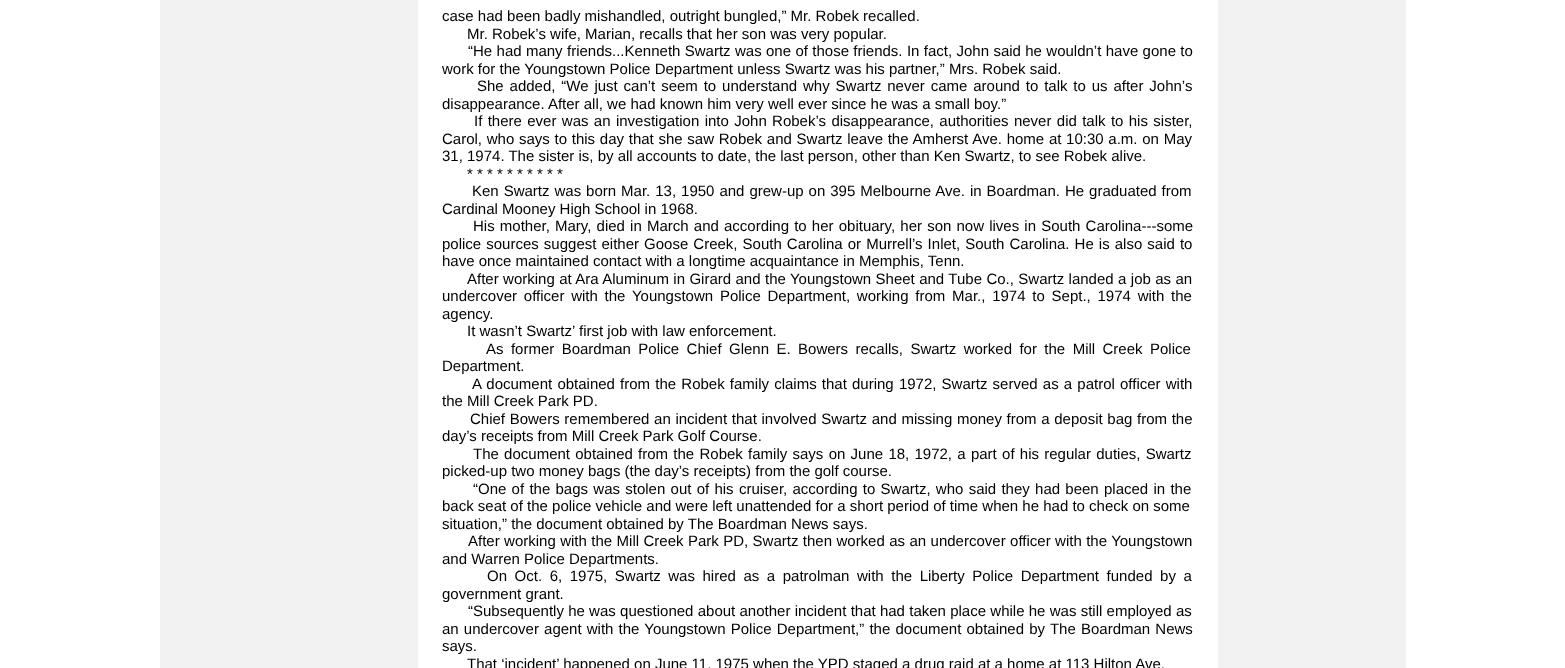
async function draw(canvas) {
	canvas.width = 1565;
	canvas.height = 668;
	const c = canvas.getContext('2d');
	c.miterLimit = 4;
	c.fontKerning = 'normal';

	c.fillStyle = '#fff';
	c.fillRect(0, 0, 1565, 668);
	c.fillStyle = '#f2f2f2';
	c.fillRect(160, 0, 258, 668);
	c.font = '15px Liberation Sans';
	c.fillStyle = '#000';
	c.fillText('case had been badly mishandled, outright bungled,” Mr. Robek recalled.', 442, 21);
	c.fillText('Mr. Robek’s wife, Marian, recalls that her son was very popular.', 467, 39);
	c.wordSpacing = '0.2px';
	c.fillText('“He had many friends...Kenneth Swartz was one of those friends. In fact, John said he wouldn’t have gone to', 468, 56);
	c.wordSpacing = '0px';
	c.fillText('work for the Youngstown Police Department unless Swartz was his partner,” Mrs. Robek said.', 442, 74);
	c.wordSpacing = '1.7px';
	c.fillText('She added, “We just can’t seem to understand why Swartz never came around to talk to us after John’s', 477, 91);
	c.wordSpacing = '0px';
	c.fillText('disappearance. After all, we had known him very well ever since he was a small boy.”', 442, 109);
	c.wordSpacing = '1.2px';
	c.fillText('If there ever was an investigation into John Robek’s disappearance, authorities never did talk to his sister,', 474, 126);
	c.wordSpacing = '0.55px';
	c.fillText('Carol, who says to this day that she saw Robek and Swartz leave the Amherst Ave. home at 10:30 a.m. on May', 442, 144);
	c.wordSpacing = '0px';
	c.fillText('31, 1974. The sister is, by all accounts to date, the last person, other than Ken Swartz, to see Robek alive.', 442, 161);
	c.fillText('* * * * * * * * * *', 467, 179);
	c.wordSpacing = '0.8px';
	c.fillText('Ken Swartz was born Mar. 13, 1950 and grew-up on 395 Melbourne Ave. in Boardman. He graduated from', 472, 196);
	c.wordSpacing = '0px';
	c.fillText('Cardinal Mooney High School in 1968.', 442, 214);
	c.wordSpacing = '1px';
	c.fillText('His mother, Mary, died in March and according to her obituary, her son now lives in South Carolina---some', 473, 231);
	c.wordSpacing = '0.9px';
	c.fillText('police sources suggest either Goose Creek, South Carolina or Murrell’s Inlet, South Carolina. He is also said to', 442, 249);
	c.wordSpacing = '0px';
	c.fillText('have once maintained contact with a longtime acquaintance in Memphis, Tenn.', 442, 266);
	c.wordSpacing = '0.25px';
	c.fillText('After working at Ara Aluminum in Girard and the Youngstown Sheet and Tube Co., Swartz landed a job as an', 467, 284);
	c.wordSpacing = '2.6px';
	c.fillText('undercover officer with the Youngstown Police Department, working from Mar., 1974 to Sept., 1974 with the', 442, 301);
	c.wordSpacing = '0px';
	c.fillText('agency.', 442, 319);
	c.fillText('It wasn’t Swartz’ first job with law enforcement.', 467, 336);
	c.wordSpacing = '3.25px';
	c.fillText('As former Boardman Police Chief Glenn E. Bowers recalls, Swartz worked for the Mill Creek Police', 486, 354);
	c.wordSpacing = '0px';
	c.fillText('Department.', 442, 371);
	c.wordSpacing = '1px';
	c.fillText('A document obtained from the Robek family claims that during 1972, Swartz served as a patrol officer with', 472, 389);
	c.wordSpacing = '0px';
	c.fillText('the Mill Creek Park PD.', 442, 406);
	c.wordSpacing = '0.5px';
	c.fillText('Chief Bowers remembered an incident that involved Swartz and missing money from a deposit bag from the', 470, 424);
	c.wordSpacing = '0px';
	c.fillText('day’s receipts from Mill Creek Park Golf Course.', 442, 441);
	c.wordSpacing = '1.1px';
	c.fillText('The document obtained from the Robek family says on June 18, 1972, a part of his regular duties, Swartz', 473, 459);
	c.wordSpacing = '0px';
	c.fillText('picked-up two money bags (the day’s receipts) from the golf course.', 442, 476);
	c.wordSpacing = '1.1px';
	c.fillText('“One of the bags was stolen out of his cruiser, according to Swartz, who said they had been placed in the', 473, 494);
	c.wordSpacing = '0px';
	c.fillText('back seat of the police vehicle and were left unattended for a short period of time when he had to check on some', 442, 511);
	c.fillText('situation,” the document obtained by The Boardman News says.', 442, 529);
	c.wordSpacing = '0.25px';
	c.fillText('After working with the Mill Creek Park PD, Swartz then worked as an undercover officer with the Youngstown', 468, 546);
	c.wordSpacing = '0px';
	c.fillText('and Warren Police Departments.', 442, 564);
	c.wordSpacing = '3.4px';
	c.fillText('On Oct. 6, 1975, Swartz was hired as a patrolman with the Liberty Police Department funded by a', 487, 581);
	c.wordSpacing = '0px';
	c.fillText('government grant.', 442, 599);
	c.wordSpacing = '0.1px';
	c.fillText('“Subsequently he was questioned about another incident that had taken place while he was still employed as', 468, 616);
	c.wordSpacing = '1px';
	c.fillText('an undercover agent with the Youngstown Police Department,” the document obtained by The Boardman News', 442, 634);
	c.wordSpacing = '0px';
	c.fillText('says.', 442, 651);
	c.fillText('That ‘incident’ happened on June 11, 1975 when the YPD staged a drug raid at a home at 113 Hilton Ave.', 467, 669);
	c.fillStyle = '#f2f2f2';
	c.fillRect(1218, 0, 188, 668);
}

draw(document.querySelector('canvas'));
